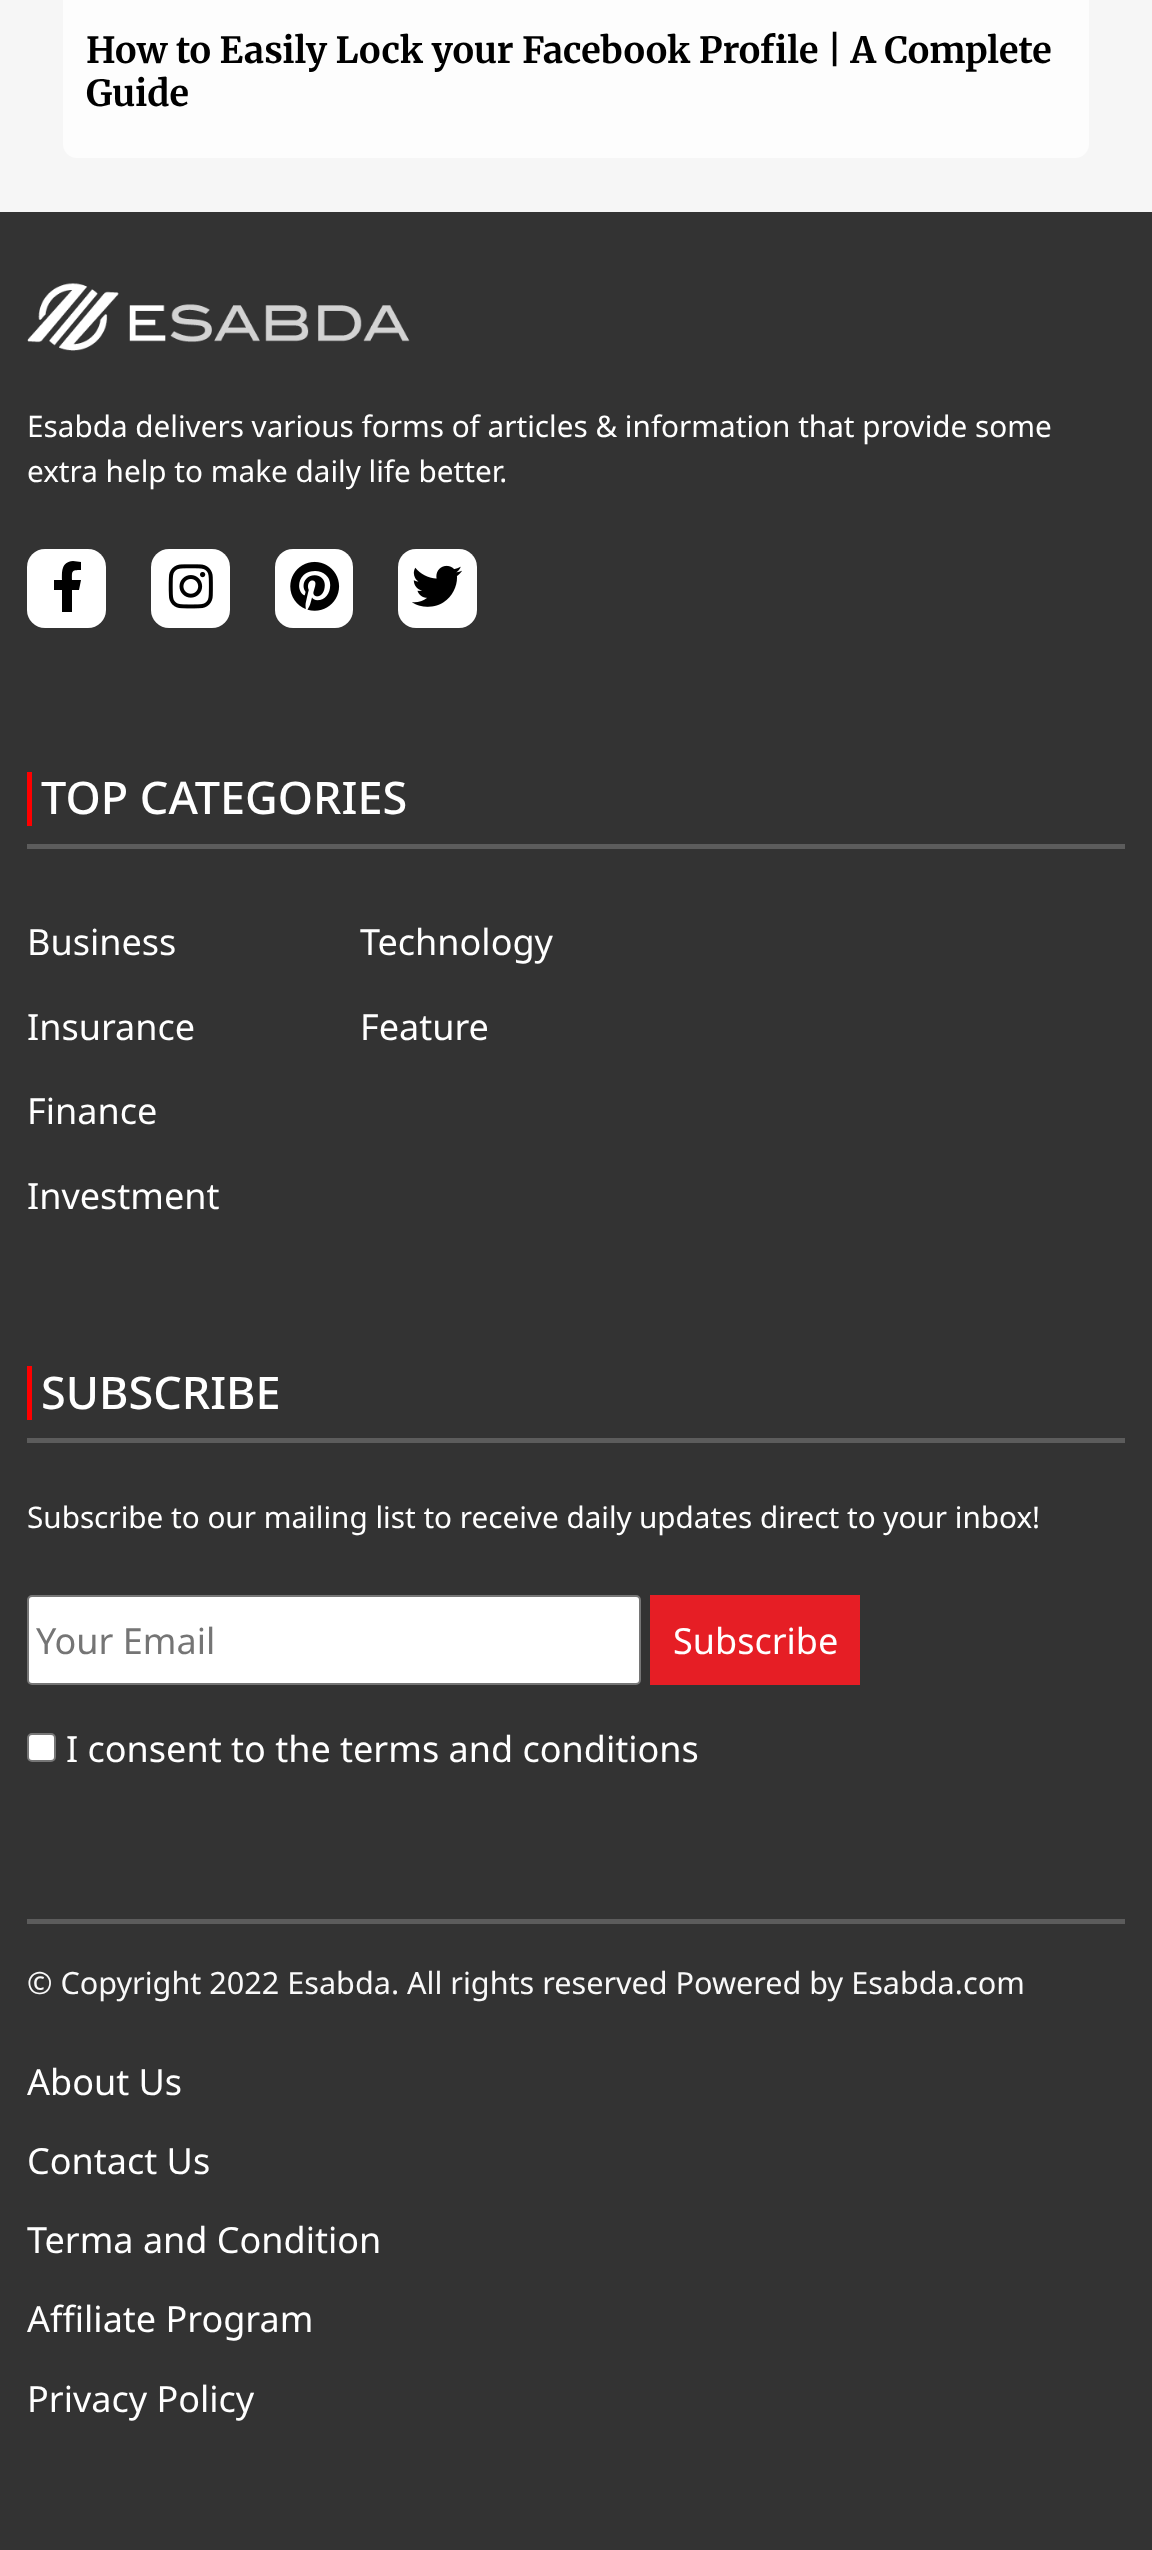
async function draw(canvas) {
	canvas.width = 1152;
	canvas.height = 2550;
	const c = canvas.getContext('2d');
	c.miterLimit = 4;
	c.fontKerning = 'normal';
	async function loadImage(src) {
		const img = new Image();
		img.src = src;
		await img.decode();
		return img;
	}

	c.fillStyle = '#f6f6f6';
	c.fillRect(0, 0, 1152, 2550);
	c.fillStyle = '#fdfdfd';
	c.beginPath();
	c.roundRect(63, -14, 1026, 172, 14);
	c.fill();
	c.font = 'bold 36px Merriweather';
	c.fillStyle = '#000';
	c.fillText('How to Easily Lock your Facebook Profile | A Complete', 86, 63);
	c.fillText('Guide', 86, 106);
	c.fillStyle = '#333';
	c.fillRect(0, 212, 1152, 2338);
	c.drawImage(await loadImage('img1.png'), 27, 283, 383, 68);
	c.font = '29.7px Noto Sans';
	c.fillStyle = '#fff';
	c.fillText('Esabda delivers various forms of articles & information that provide some', 27, 437);
	c.fillText('extra help to make daily life better.', 27, 482);
	c.beginPath();
	c.roundRect(27, 549, 79, 79, 18);
	c.fill();
	c.fillStyle = '#000';
	c.beginPath();
	c.moveTo(79, 590);
	c.lineTo(81, 580);
	c.lineTo(72, 580);
	c.bezierCurveTo(72, 571, 71, 570, 81, 570);
	c.lineTo(81, 562);
	c.lineTo(73, 561);
	c.bezierCurveTo(61, 562, 62, 572, 62, 580);
	c.lineTo(54, 580);
	c.lineTo(54, 590);
	c.lineTo(62, 590);
	c.lineTo(62, 612);
	c.lineTo(72, 612);
	c.lineTo(72, 590);
	c.closePath();
	c.fill();
	c.fillStyle = '#fff';
	c.beginPath();
	c.roundRect(151, 549, 79, 79, 18);
	c.fill();
	c.drawImage(await loadImage('img2.png'), 168, 564, 45, 45);
	c.beginPath();
	c.roundRect(275, 549, 78, 79, 18);
	c.fill();
	c.drawImage(await loadImage('img3.png'), 290, 561, 50, 50);
	c.beginPath();
	c.roundRect(398, 549, 79, 79, 18);
	c.fill();
	c.drawImage(await loadImage('img4.png'), 412, 565, 50, 42);
	c.fillStyle = '#5c5c5c';
	c.fillRect(27, 844, 1098, 5);
	c.fillStyle = '#f00';
	c.fillRect(27, 772, 5, 54);
	c.font = '500 45px Noto Sans';
	c.fillStyle = '#fff';
	c.fillText('TOP CATEGORIES', 41, 814);
	c.font = '36px Noto Sans';
	for (const [text, x, y] of [
		['Business', 27, 955],
		['Insurance', 27, 1040],
		['Finance', 27, 1124],
		['Investment', 27, 1209],
		['Technology', 360, 955],
		['Feature', 360, 1040],
	]) {
		c.fillText(text, x, y);
	}
	c.fillStyle = '#5c5c5c';
	c.fillRect(27, 1438, 1098, 5);
	c.fillStyle = '#f00';
	c.fillRect(27, 1366, 5, 54);
	c.font = '500 45px Noto Sans';
	c.fillStyle = '#fff';
	c.fillText('SUBSCRIBE', 41, 1409);
	c.font = '29.7px Noto Sans';
	c.fillText('Subscribe to our mailing list to receive daily', 27, 1528);
	c.fillText('updates direct to your inbox!', 639, 1528);
	c.beginPath();
	c.roundRect(28, 1596, 612, 88, 4);
	c.fill();
	c.strokeStyle = '#767676';
	c.lineWidth = 2;
	c.stroke();
	c.font = '36px Noto Sans';
	c.fillStyle = '#757575';
	c.fillText('Your Email', 36, 1654);
	c.fillStyle = '#e61e25';
	c.fillRect(650, 1595, 210, 90);
	c.fillStyle = '#fff';
	c.fillText('Subscribe', 673, 1654);
	c.beginPath();
	c.roundRect(28, 1734, 27, 27, 4);
	c.fill();
	c.stroke();
	c.fillText('I consent to the terms and conditions', 66, 1762);
	c.fillStyle = '#5c5c5c';
	c.fillRect(27, 1919, 1098, 5);
	c.font = '30.6px Noto Sans';
	c.fillStyle = '#f9f9f9';
	c.fillText('© Copyright 2022 Esabda. All rights reserved Powered by Esabda.com', 27, 1994);
	c.font = '36px Noto Sans';
	c.fillStyle = '#fff';
	for (const [text, x, y] of [
		['About Us', 27, 2095],
		['Contact Us', 27, 2174],
		['Terma and Condition', 27, 2253],
		['Affiliate Program', 27, 2332],
		['Privacy Policy', 27, 2412],
	]) {
		c.fillText(text, x, y);
	}
}

draw(document.querySelector('canvas'));
